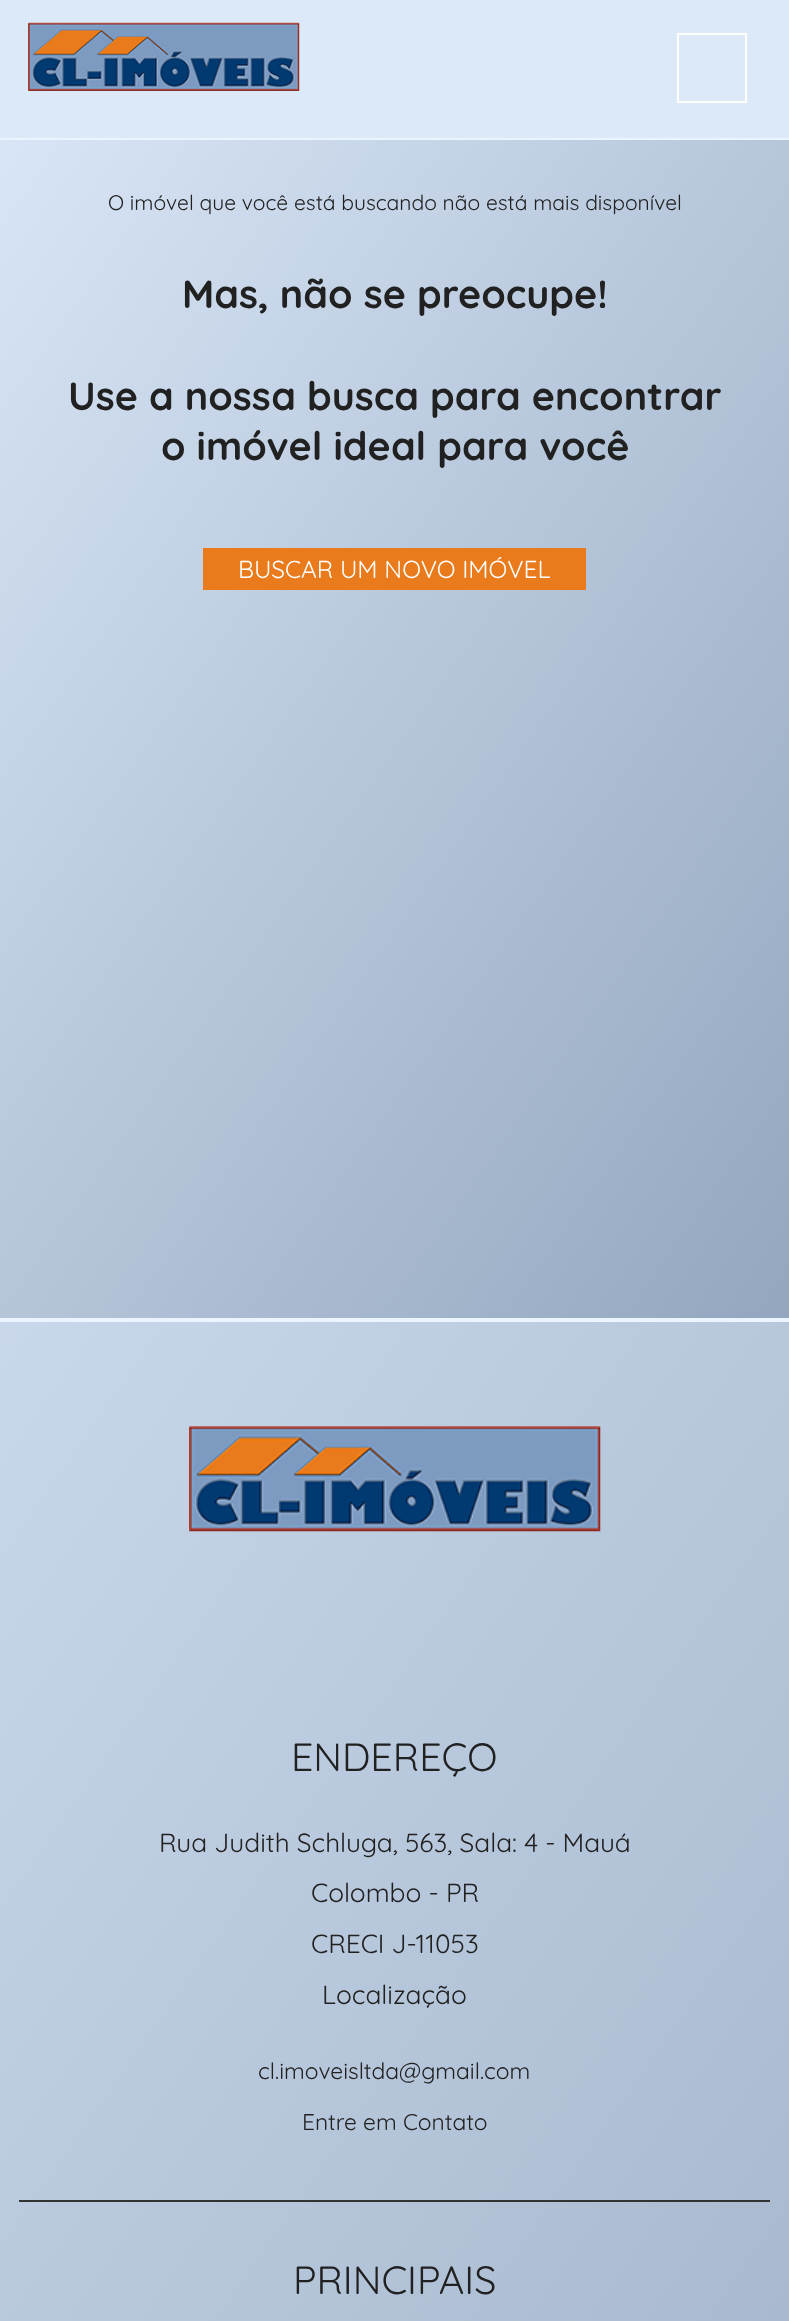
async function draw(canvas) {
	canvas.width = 789;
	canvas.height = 2321;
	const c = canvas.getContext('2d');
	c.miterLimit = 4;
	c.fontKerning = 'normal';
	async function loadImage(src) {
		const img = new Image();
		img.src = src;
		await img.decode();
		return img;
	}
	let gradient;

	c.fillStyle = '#fff';
	c.fillRect(0, 0, 789, 2321);
	gradient = c.createLinearGradient(-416, 594, 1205, 1729);
	gradient.addColorStop(0, '#dce9f9');
	gradient.addColorStop(1, '#768ba7');
	c.fillStyle = gradient;
	c.fillRect(0, 140, 789, 1178);
	gradient = c.createLinearGradient(-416, 594, 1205, 1729);
	gradient.addColorStop(0, '#dce9f9');
	gradient.addColorStop(1, '#a9bad0');
	c.fillStyle = gradient;
	c.fillRect(0, 1322, 789, 999);
	c.fillStyle = '#dce9f9';
	c.fillRect(0, 0, 789, 138);
	c.fillStyle = '#ebf4ff';
	c.fillRect(0, 138, 789, 2);
	c.drawImage(await loadImage('img1.png'), 28, 22, 272, 69);
	c.strokeStyle = '#fff';
	c.lineWidth = 2;
	c.strokeRect(678, 34, 68, 68);
	c.font = '21px Quicksand';
	c.fillStyle = '#212121';
	c.fillText('O imóvel que você está buscando não está mais disponível', 108, 210);
	c.font = 'bold 39.4px Quicksand';
	for (const [text, x, y] of [
		['Mas, não se preocupe!', 182, 308],
		['Use a nossa busca para encontrar', 68, 410],
		['o imóvel ideal para você', 161, 460],
	]) {
		c.fillText(text, x, y);
	}
	c.fillStyle = '#e97b1c';
	c.fillRect(203, 548, 383, 42);
	c.font = '24.5px Quicksand';
	c.fillStyle = '#fff';
	c.fillText('BUSCAR UM NOVO IMÓVEL', 238, 578);
	c.fillStyle = '#ebf4ff';
	c.fillRect(0, 1318, 789, 4);
	c.drawImage(await loadImage('img2.png'), 189, 1426, 412, 106);
	c.fillStyle = '#343333';
	c.fillRect(19, 2200, 751, 2);
	c.font = '39.4px Quicksand';
	c.fillStyle = '#212121';
	c.fillText('ENDEREÇO', 291, 1771);
	c.font = '26.25px Quicksand';
	for (const [text, x, y] of [
		['Rua Judith Schluga, 563, Sala: 4 - Mauá', 159, 1852],
		['Colombo - PR', 311, 1902],
		['CRECI J-11053', 311, 1953],
		['Localização', 322, 2004],
	]) {
		c.fillText(text, x, y);
	}
	c.font = '22.75px Quicksand';
	c.fillText('cl.imoveisltda@gmail.com', 258, 2079);
	c.fillText('Entre em Contato', 302, 2130);
	c.font = '39.4px Quicksand';
	c.fillText('PRINCIPAIS', 293, 2294);
}

draw(document.querySelector('canvas'));
